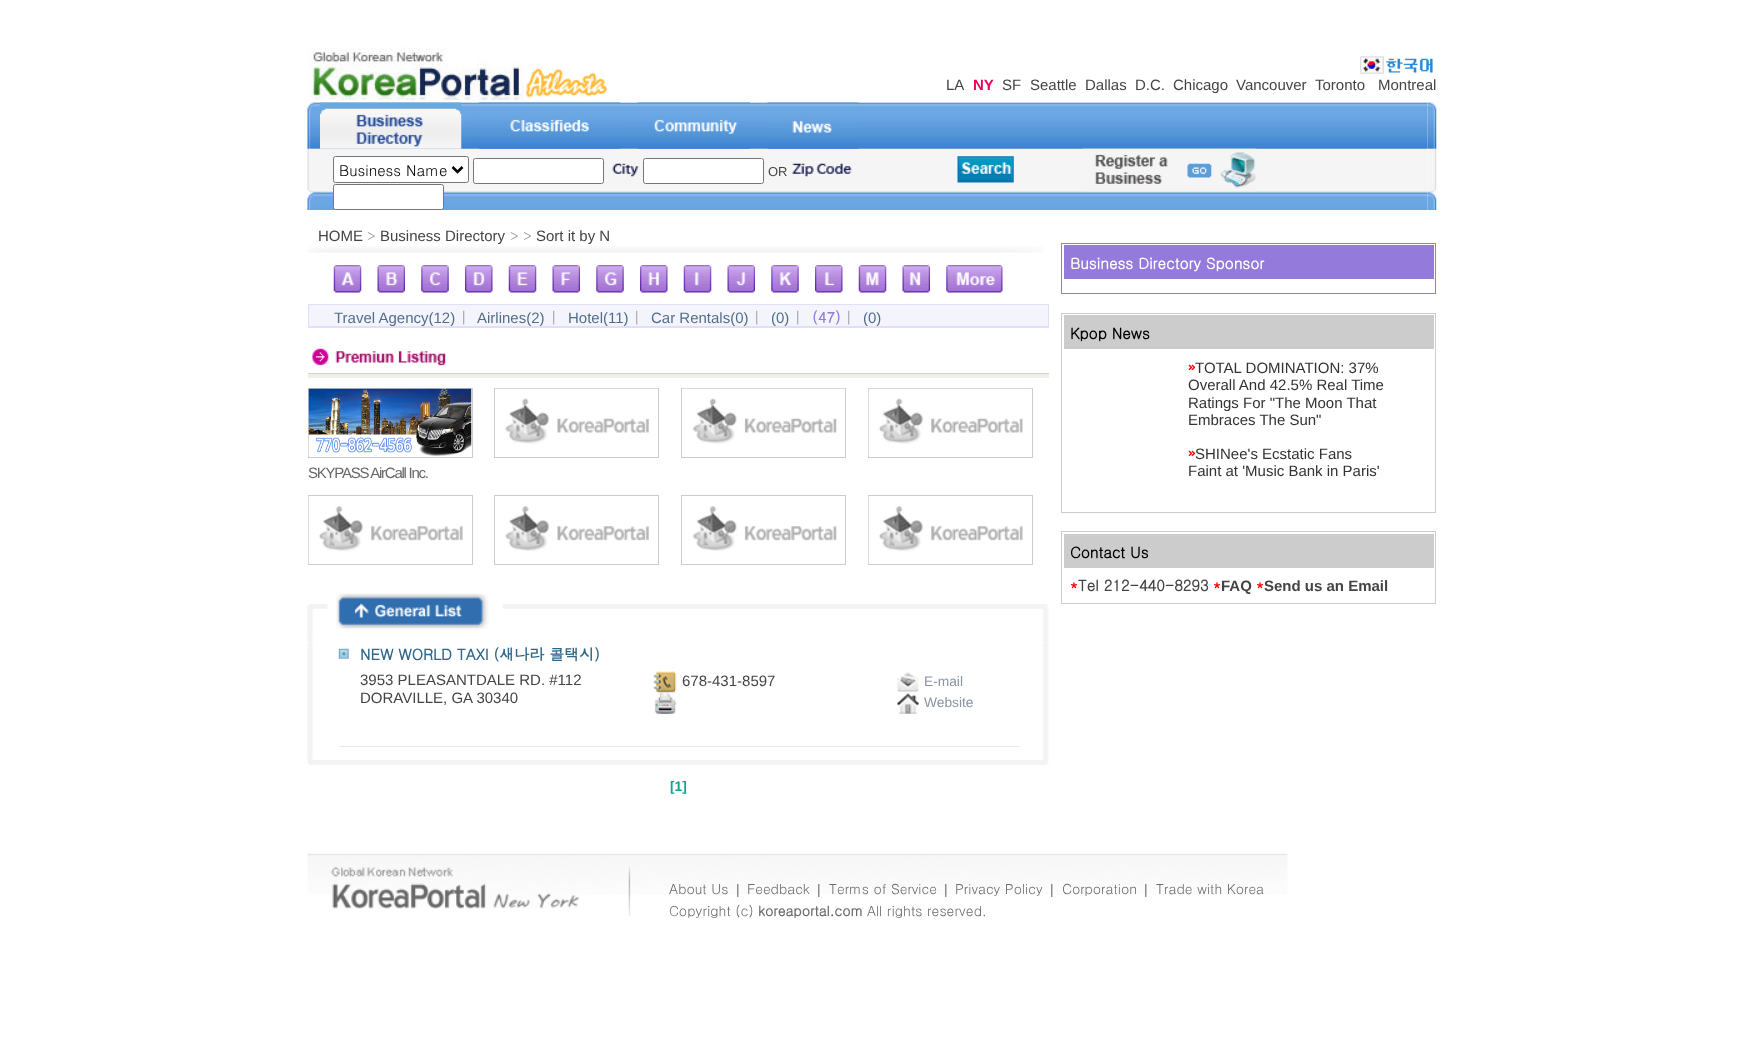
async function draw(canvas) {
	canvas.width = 1743;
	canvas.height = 1063;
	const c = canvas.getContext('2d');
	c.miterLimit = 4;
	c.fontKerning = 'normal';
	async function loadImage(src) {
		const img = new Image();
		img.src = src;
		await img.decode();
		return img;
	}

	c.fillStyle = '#fff';
	c.fillRect(0, 0, 1743, 1063);
	c.drawImage(await loadImage('img1.png'), 307, 47, 301, 53);
	c.drawImage(await loadImage('img2.png'), 1360, 56, 73, 18);
	c.font = '15px Liberation Sans';
	c.fillStyle = '#444';
	c.fillText('LA', 946, 90);
	c.font = 'bold 15px Liberation Sans';
	c.fillStyle = '#ec005a';
	c.fillText('NY', 973, 90);
	c.font = '15px Liberation Sans';
	c.fillStyle = '#444';
	for (const [text, x, y] of [
		['SF', 1002, 90],
		['Seattle', 1030, 90],
		['Dallas', 1085, 90],
		['D.C.', 1135, 90],
		['Chicago', 1173, 90],
		['Vancouver', 1236, 90],
		['Toronto', 1315, 90],
		['Montreal', 1378, 90],
	]) {
		c.fillText(text, x, y);
	}
	c.drawImage(await loadImage('img3.png'), 307, 102, 13, 108);
	c.drawImage(await loadImage('img4.png'), 320, 102, 1108, 108);
	c.drawImage(await loadImage('img5.png'), 320, 102, 142, 47);
	c.drawImage(await loadImage('img6.png'), 478, 102, 142, 47);
	c.drawImage(await loadImage('img7.png'), 637, 102, 113, 47);
	c.drawImage(await loadImage('img8.png'), 767, 102, 92, 47);
	c.fillStyle = '#fff';
	c.beginPath();
	c.roundRect(333.5, 156.5, 135, 26, 2);
	c.fill();
	c.strokeStyle = '#767676';
	c.stroke();
	c.beginPath();
	c.moveTo(452.5, 167);
	c.lineTo(457.5, 172);
	c.lineTo(462.5, 167);
	c.strokeStyle = '#000';
	c.lineWidth = 2.5;
	c.stroke();
	c.font = '15px Dotum';
	c.fillStyle = '#000';
	c.fillText('Business Name', 339, 176);
	c.fillStyle = '#fff';
	c.beginPath();
	c.roundRect(473.5, 158.5, 130, 25, 2);
	c.fill();
	c.strokeStyle = '#767676';
	c.lineWidth = 1;
	c.stroke();
	c.drawImage(await loadImage('img9.png'), 612, 163, 27, 14);
	c.beginPath();
	c.roundRect(643.5, 158.5, 120, 25, 2);
	c.fill();
	c.stroke();
	c.font = '13px Liberation Sans';
	c.fillStyle = '#444';
	c.fillText('OR', 768, 176);
	c.drawImage(await loadImage('img10.png'), 792, 163, 60, 14);
	c.fillStyle = '#fff';
	c.beginPath();
	c.roundRect(333.5, 184.5, 110, 25, 2);
	c.fill();
	c.stroke();
	c.drawImage(await loadImage('img11.png'), 957, 156, 57, 27);
	c.drawImage(await loadImage('img12.png'), 1082, 148, 175, 44);
	c.drawImage(await loadImage('img13.png'), 1427, 102, 10, 108);
	c.font = '15px Liberation Sans';
	c.fillStyle = '#444';
	c.fillText('HOME', 318, 241);
	c.font = '13.75px Dotum';
	c.fillStyle = '#959697';
	c.fillText('>', 367, 241);
	c.font = '15px Liberation Sans';
	c.fillStyle = '#444';
	c.fillText('Business Directory', 380, 241);
	c.font = '13.75px Dotum';
	c.fillStyle = '#959697';
	c.fillText('> >', 510, 241);
	c.font = '15px Liberation Sans';
	c.fillStyle = '#444';
	c.fillText('Sort it by N', 536, 241);
	c.drawImage(await loadImage('img14.png'), 308, 246, 736, 7);
	c.drawImage(await loadImage('img15.png'), 333, 265, 29, 28);
	c.drawImage(await loadImage('img16.png'), 377, 265, 28, 28);
	c.drawImage(await loadImage('img17.png'), 421, 265, 28, 28);
	c.drawImage(await loadImage('img18.png'), 465, 265, 28, 28);
	c.drawImage(await loadImage('img19.png'), 508, 265, 29, 28);
	c.drawImage(await loadImage('img20.png'), 552, 265, 28, 28);
	c.drawImage(await loadImage('img21.png'), 596, 265, 28, 28);
	c.drawImage(await loadImage('img22.png'), 640, 265, 28, 28);
	c.drawImage(await loadImage('img23.png'), 683, 265, 29, 28);
	c.drawImage(await loadImage('img24.png'), 727, 265, 28, 28);
	c.drawImage(await loadImage('img25.png'), 771, 265, 28, 28);
	c.drawImage(await loadImage('img26.png'), 815, 265, 28, 28);
	c.drawImage(await loadImage('img27.png'), 858, 265, 29, 28);
	c.drawImage(await loadImage('img28.png'), 902, 265, 28, 28);
	c.drawImage(await loadImage('img29.png'), 946, 265, 57, 28);
	c.fillStyle = '#e1defa';
	c.fillRect(308, 304, 741, 24);
	c.fillStyle = '#f4f4fd';
	c.fillRect(309, 305, 739, 21);
	c.fillStyle = '#526f88';
	c.fillText('Travel Agency(12)', 334, 323);
	c.font = '15px Dotum';
	c.fillStyle = '#959697';
	c.fillText('|', 460, 323);
	c.font = '15px Liberation Sans';
	c.fillStyle = '#526f88';
	c.fillText('Airlines(2)', 477, 323);
	c.font = '15px Dotum';
	c.fillStyle = '#959697';
	c.fillText('|', 550, 323);
	c.font = '15px Liberation Sans';
	c.fillStyle = '#526f88';
	c.fillText('Hotel(11)', 568, 323);
	c.font = '15px Dotum';
	c.fillStyle = '#959697';
	c.fillText('|', 633, 323);
	c.font = '15px Liberation Sans';
	c.fillStyle = '#526f88';
	c.fillText('Car Rentals(0)', 651, 323);
	c.font = '15px Dotum';
	c.fillStyle = '#959697';
	c.fillText('|', 753, 323);
	c.font = '15px Liberation Sans';
	c.fillStyle = '#526f88';
	c.fillText('(0)', 771, 323);
	c.font = '15px Dotum';
	c.fillStyle = '#959697';
	c.fillText('|', 794, 323);
	c.font = 'bold 15px Dotum';
	c.fillStyle = '#967bda';
	c.fillText('(47)', 812, 323);
	c.font = '15px Dotum';
	c.fillStyle = '#959697';
	c.fillText('|', 845, 323);
	c.font = '15px Liberation Sans';
	c.fillStyle = '#526f88';
	c.fillText('(0)', 863, 323);
	c.drawImage(await loadImage('img30.png'), 312, 348, 134, 18);
	c.fillStyle = '#d6d3d6';
	c.fillRect(308, 373, 741, 1);
	c.fillStyle = '#efefe7';
	c.fillRect(308, 374, 741, 4);
	c.strokeStyle = '#ccc';
	c.strokeRect(308.5, 388.5, 164, 69);
	c.drawImage(await loadImage('img31.png'), 308, 388, 164, 69);
	c.strokeRect(494.5, 388.5, 164, 69);
	c.drawImage(await loadImage('img32.png'), 495, 388, 163, 56);
	c.strokeRect(681.5, 388.5, 164, 69);
	c.drawImage(await loadImage('img33.png'), 682, 388, 163, 56);
	c.strokeRect(868.5, 388.5, 164, 69);
	c.drawImage(await loadImage('img34.png'), 868, 388, 163, 68);
	c.letterSpacing = '-1.25px';
	c.fillStyle = '#686868';
	c.fillText('SKYPASS AirCall Inc.', 308, 478);
	c.strokeRect(308.5, 495.5, 164, 69);
	c.drawImage(await loadImage('img35.png'), 308, 496, 155, 68);
	c.strokeRect(494.5, 495.5, 164, 69);
	c.drawImage(await loadImage('img36.png'), 505, 506, 144, 45);
	c.strokeRect(681.5, 495.5, 164, 69);
	c.drawImage(await loadImage('img37.png'), 692, 506, 145, 45);
	c.strokeRect(868.5, 495.5, 164, 69);
	c.drawImage(await loadImage('img38.png'), 868, 496, 155, 68);
	c.drawImage(await loadImage('img39.png'), 307, 604, 742, 32);
	c.drawImage(await loadImage('img40.png'), 327, 593, 163, 36);
	c.drawImage(await loadImage('img41.png'), 307, 636, 742, 7);
	c.drawImage(await loadImage('img42.png'), 307, 643, 742, 113);
	c.drawImage(await loadImage('img43.png'), 338, 648, 11, 11);
	c.letterSpacing = '0px';
	c.font = 'bold 15px Dotum';
	c.fillStyle = '#306687';
	c.fillText('NEW WORLD TAXI (새나라 콜택시)', 360, 660);
	c.font = '15px Liberation Sans';
	c.fillStyle = '#444';
	c.fillText('3953 PLEASANTDALE RD. #112', 360, 685);
	c.fillText('DORAVILLE, GA 30340', 360, 703);
	c.drawImage(await loadImage('img44.png'), 653, 671, 24, 22);
	c.fillText('678-431-8597', 682, 686);
	c.drawImage(await loadImage('img45.png'), 897, 672, 22, 21);
	c.font = '13.75px Liberation Sans';
	c.fillStyle = '#8994a5';
	c.fillText('E-mail', 924, 686);
	c.drawImage(await loadImage('img46.png'), 654, 692, 23, 22);
	c.drawImage(await loadImage('img47.png'), 897, 692, 22, 22);
	c.fillText('Website', 924, 707);
	c.fillStyle = '#e9e9e9';
	c.fillRect(339, 746, 681, 1);
	c.drawImage(await loadImage('img48.png'), 307, 756, 742, 9);
	c.font = 'bold 13.75px Liberation Sans';
	c.fillStyle = '#12a48e';
	c.fillText('[1]', 670, 791);
	c.strokeStyle = '#947ada';
	c.strokeRect(1061.5, 243.5, 374, 50);
	c.fillStyle = '#947ada';
	c.fillRect(1064, 245, 370, 34);
	c.font = 'bold 15px Gulim';
	c.fillStyle = '#fff';
	c.fillText('Business Directory Sponsor', 1070, 269);
	c.strokeStyle = '#ccc';
	c.strokeRect(1061.5, 313.5, 374, 199);
	c.fillStyle = '#ccc';
	c.fillRect(1064, 315, 370, 34);
	c.fillStyle = '#000';
	c.fillText('Kpop News', 1070, 339);
	c.fillStyle = '#f00';
	c.fillText('»', 1188, 373);
	c.font = '15px Liberation Sans';
	c.fillStyle = '#333';
	for (const [text, x, y] of [
		['TOTAL DOMINATION: 37%', 1195, 373],
		['Overall And 42.5% Real Time', 1188, 390],
		['Ratings For "The Moon That', 1188, 408],
		['Embraces The Sun"', 1188, 425],
	]) {
		c.fillText(text, x, y);
	}
	c.font = 'bold 15px Gulim';
	c.fillStyle = '#f00';
	c.fillText('»', 1188, 459);
	c.font = '15px Liberation Sans';
	c.fillStyle = '#333';
	c.fillText('SHINee\'s Ecstatic Fans', 1195, 459);
	c.fillText('Faint at \'Music Bank in Paris\'', 1188, 476);
	c.strokeRect(1061.5, 531.5, 374, 72);
	c.fillStyle = '#ccc';
	c.fillRect(1064, 534, 370, 34);
	c.font = 'bold 15px Gulim';
	c.fillStyle = '#000';
	c.fillText('Contact Us', 1070, 558);
	c.fillStyle = '#f00';
	c.fillText('*', 1070, 591);
	c.fillStyle = '#444';
	c.fillText('Tel 212-440-8293', 1078, 591);
	c.fillStyle = '#f00';
	c.fillText('*', 1213, 591);
	c.font = 'bold 15px Liberation Sans';
	c.fillStyle = '#444';
	c.fillText('FAQ', 1221, 591);
	c.font = 'bold 15px Gulim';
	c.fillStyle = '#f00';
	c.fillText('*', 1256, 591);
	c.font = 'bold 15px Liberation Sans';
	c.fillStyle = '#444';
	c.fillText('Send us an Email', 1264, 591);
	c.drawImage(await loadImage('img49.png'), 307, 853, 981, 42);
	c.drawImage(await loadImage('img50.png'), 331, 867, 248, 42);
	c.drawImage(await loadImage('img51.png'), 628, 866, 3, 51);
	c.font = '13.75px Dotum';
	c.fillStyle = '#6e6b6b';
	c.fillText('About Us', 669, 894);
	c.font = '13.75px Liberation Sans';
	c.fillText('|', 736, 894);
	c.font = '13.75px Dotum';
	c.fillText('Feedback', 747, 894);
	c.font = '13.75px Liberation Sans';
	c.fillText('|', 817, 894);
	c.font = '13.75px Dotum';
	c.fillText('Terms of Service', 829, 894);
	c.font = '13.75px Liberation Sans';
	c.fillText('|', 944, 894);
	c.font = '13.75px Dotum';
	c.fillText('Privacy Policy', 955, 894);
	c.font = '13.75px Liberation Sans';
	c.fillText('|', 1050, 894);
	c.font = '13.75px Dotum';
	c.fillText('Corporation', 1062, 894);
	c.font = '13.75px Liberation Sans';
	c.fillText('|', 1144, 894);
	c.font = '13.75px Dotum';
	c.fillText('Trade with Korea', 1156, 894);
	c.font = '13.75px Gulim';
	c.fillText('Copyright (c)', 669, 916);
	c.font = 'bold 13.75px Gulim';
	c.fillText('koreaportal.com', 758, 916);
	c.font = '13.75px Gulim';
	c.fillText('All rights reserved.', 867, 916);
}

draw(document.querySelector('canvas'));
